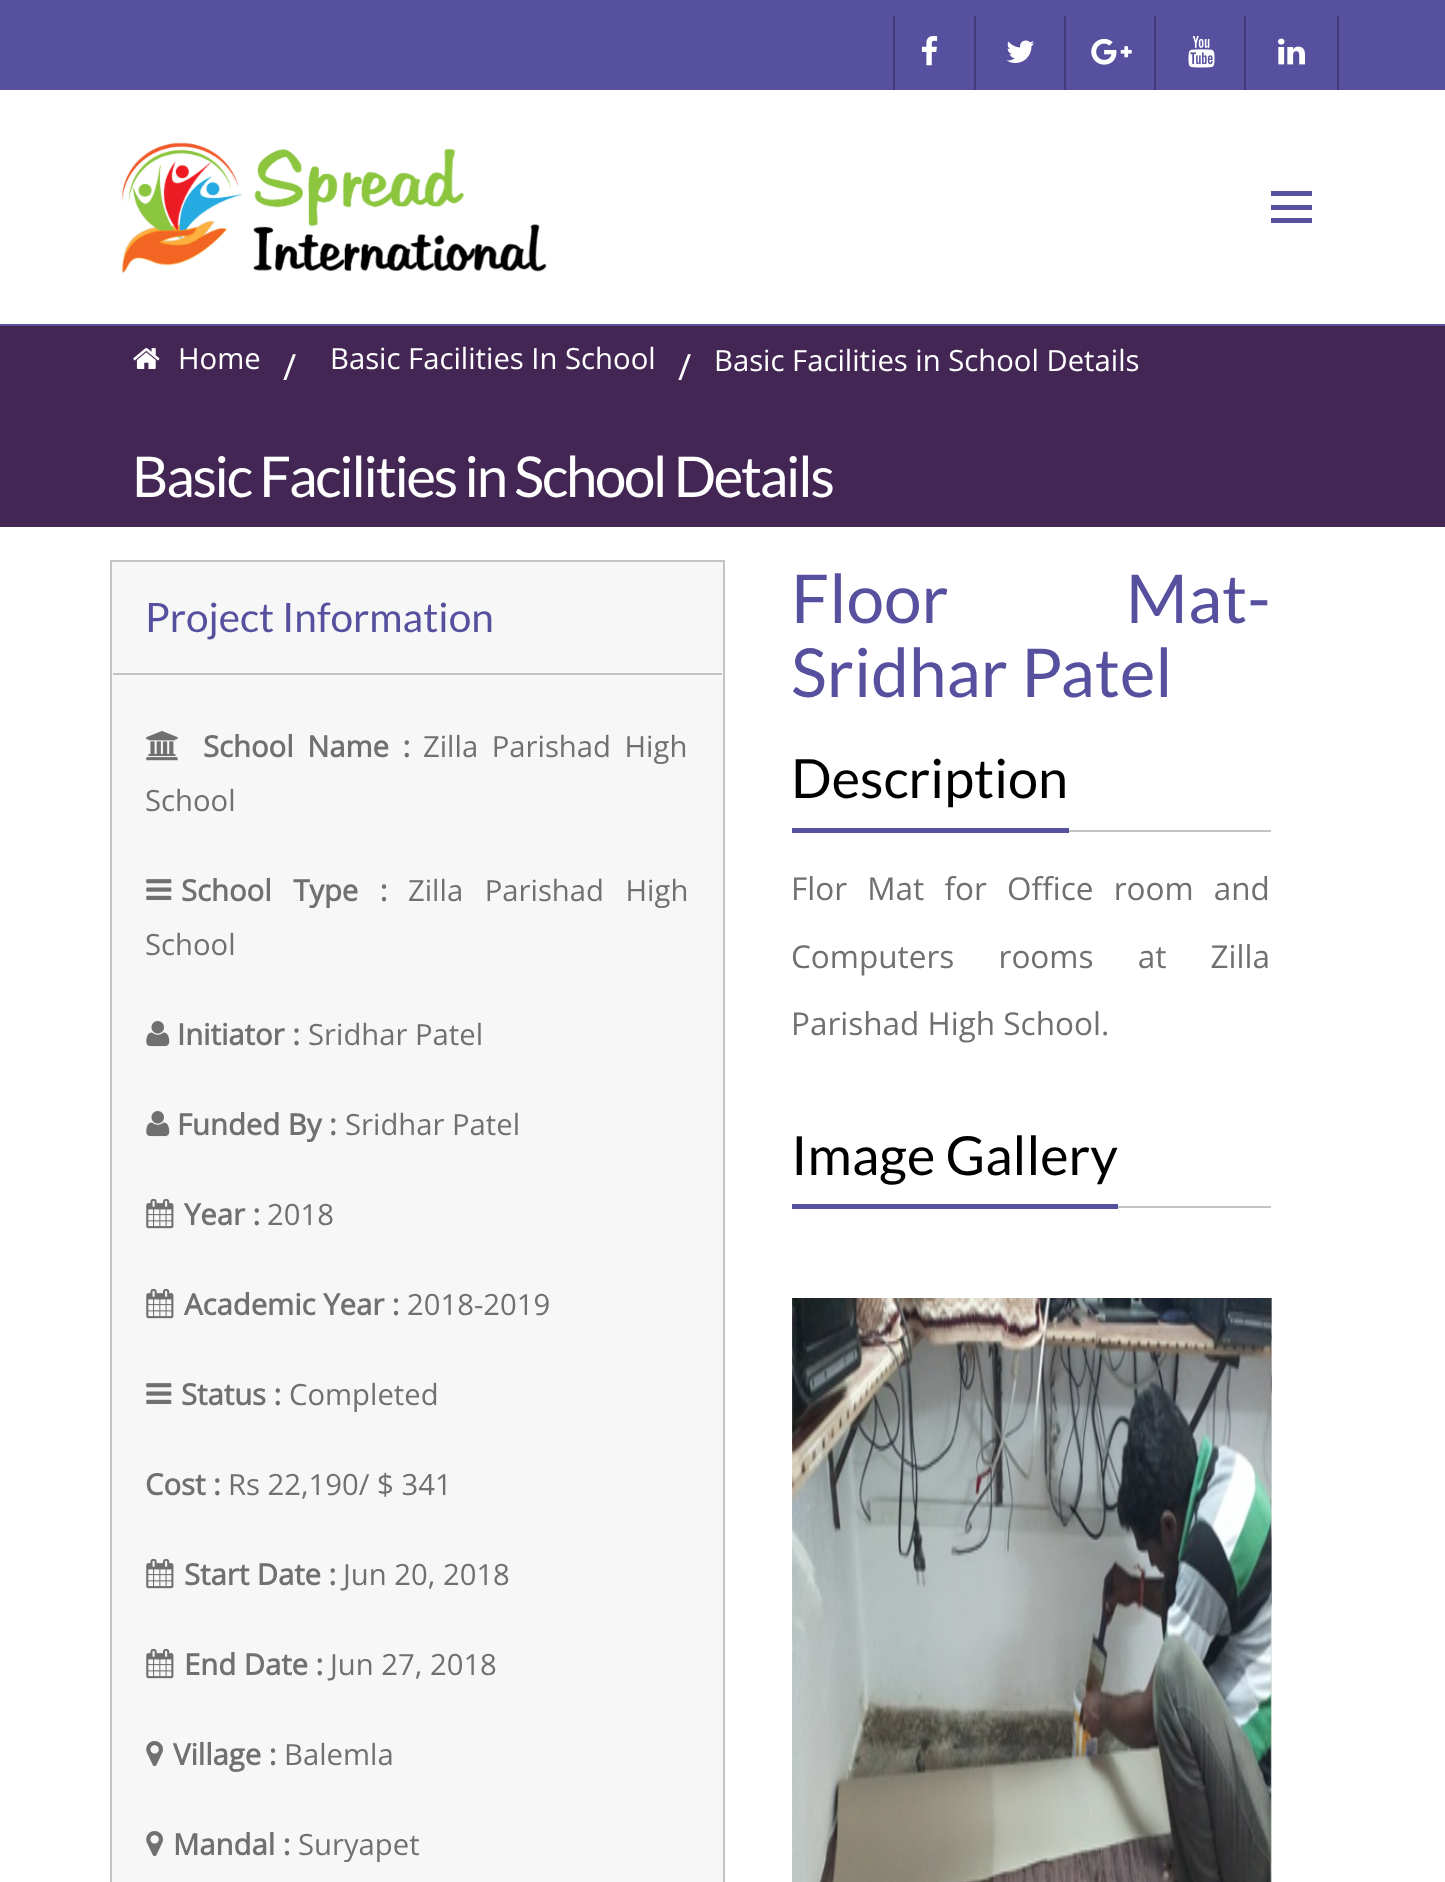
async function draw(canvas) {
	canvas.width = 1445;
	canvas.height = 1882;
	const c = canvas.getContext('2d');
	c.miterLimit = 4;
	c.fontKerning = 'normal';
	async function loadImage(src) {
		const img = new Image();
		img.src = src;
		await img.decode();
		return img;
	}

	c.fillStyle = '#fff';
	c.fillRect(0, 0, 1445, 1882);
	for (const [x, y, w, h, color] of [
		[0, 324, 1445, 2, '#56509f'],
		[0, 0, 1445, 90, '#56509f'],
		[893, 16, 2, 74, '#413a7d'],
		[974, 16, 2, 74, '#413a7d'],
	]) {
		c.fillStyle = color;
		c.fillRect(x, y, w, h);
	}
	c.drawImage(await loadImage('img1.png'), 921, 36, 17, 30);
	c.fillRect(1064, 16, 2, 74);
	c.drawImage(await loadImage('img2.png'), 1006, 40, 29, 23);
	c.fillRect(1154, 16, 2, 74);
	c.drawImage(await loadImage('img3.png'), 1091, 38, 41, 27);
	c.fillRect(1244, 16, 2, 74);
	c.drawImage(await loadImage('img4.png'), 1188, 36, 27, 32);
	c.fillRect(1337, 16, 2, 74);
	c.drawImage(await loadImage('img5.png'), 1278, 38, 27, 27);
	c.drawImage(await loadImage('img6.png'), 121, 142, 426, 132);
	for (const [x, y, w, h, color] of [
		[1271, 218, 41, 5, '#56509f'],
		[1271, 205, 41, 5, '#56509f'],
		[1271, 191, 41, 5, '#56509f'],
		[0, 326, 1445, 201, '#432654'],
	]) {
		c.fillStyle = color;
		c.fillRect(x, y, w, h);
	}
	c.drawImage(await loadImage('img7.png'), 133, 348, 27, 21);
	c.font = '29.25px Open Sans';
	c.fillStyle = '#fff';
	c.fillText('Home', 178, 369);
	c.font = '36px Open Sans';
	c.fillText('/', 283, 380);
	c.font = '29.25px Open Sans';
	c.fillText('Basic Facilities In School', 330, 369);
	c.font = '36px Open Sans';
	c.fillText('/', 678, 380);
	c.font = '29.25px Open Sans';
	c.fillText('Basic Facilities in School Details', 714, 371);
	c.letterSpacing = '-2.25px';
	c.font = '56.25px Lato';
	c.fillText('Basic Facilities in School Details', 132, 497);
	c.fillStyle = '#f7f7f7';
	c.beginPath();
	c.rect(111, 561, 613, 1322);
	c.fill();
	c.strokeStyle = '#c3c3c3';
	c.lineWidth = 2;
	c.stroke();
	c.fillStyle = '#c3c3c3';
	c.fillRect(113, 673, 609, 2);
	c.letterSpacing = '0px';
	c.font = '40.5px Lato';
	c.fillStyle = '#56509f';
	c.fillText('Project Information', 145, 632);
	c.drawImage(await loadImage('img8.png'), 146, 731, 32, 30);
	c.wordSpacing = '6px';
	c.font = 'bold 29.25px Open Sans';
	c.fillStyle = '#707070';
	c.fillText('School Name :', 203, 757);
	c.font = '29.25px Open Sans';
	c.fillText('Zilla Parishad High', 423, 757);
	c.wordSpacing = '0px';
	c.fillText('School', 145, 811);
	c.drawImage(await loadImage('img9.png'), 146, 879, 26, 21);
	c.wordSpacing = '14px';
	c.font = 'bold 29.25px Open Sans';
	c.fillText('School Type :', 181, 901);
	c.font = '29.25px Open Sans';
	c.fillText('Zilla Parishad High', 408, 901);
	c.wordSpacing = '0px';
	c.fillText('School', 145, 955);
	c.drawImage(await loadImage('img10.png'), 146, 1021, 24, 26);
	c.font = 'bold 29.25px Open Sans';
	c.fillText('Initiator :', 177, 1045);
	c.font = '29.25px Open Sans';
	c.fillText('Sridhar Patel', 308, 1045);
	c.drawImage(await loadImage('img10.png'), 146, 1111, 24, 26);
	c.font = 'bold 29.25px Open Sans';
	c.fillText('Funded By :', 177, 1135);
	c.font = '29.25px Open Sans';
	c.fillText('Sridhar Patel', 345, 1135);
	c.drawImage(await loadImage('img11.png'), 146, 1198, 28, 31);
	c.font = 'bold 29.25px Open Sans';
	c.fillText('Year :', 184, 1225);
	c.font = '29.25px Open Sans';
	c.fillText('2018', 267, 1225);
	c.drawImage(await loadImage('img11.png'), 146, 1288, 28, 31);
	c.font = 'bold 29.25px Open Sans';
	c.fillText('Academic Year :', 184, 1315);
	c.font = '29.25px Open Sans';
	c.fillText('2018-2019', 407, 1315);
	c.drawImage(await loadImage('img9.png'), 146, 1383, 26, 21);
	c.font = 'bold 29.25px Open Sans';
	c.fillText('Status :', 181, 1405);
	c.font = '29.25px Open Sans';
	c.fillText('Completed', 289, 1405);
	c.font = 'bold 29.25px Open Sans';
	c.fillText('Cost :', 145, 1495);
	c.font = '29.25px Open Sans';
	c.fillText('Rs 22,190/ $ 341', 228, 1495);
	c.drawImage(await loadImage('img11.png'), 146, 1558, 28, 31);
	c.font = 'bold 29.25px Open Sans';
	c.fillText('Start Date :', 184, 1585);
	c.font = '29.25px Open Sans';
	c.fillText('Jun 20, 2018', 343, 1585);
	c.drawImage(await loadImage('img11.png'), 146, 1648, 28, 31);
	c.font = 'bold 29.25px Open Sans';
	c.fillText('End Date :', 184, 1675);
	c.font = '29.25px Open Sans';
	c.fillText('Jun 27, 2018', 330, 1675);
	c.drawImage(await loadImage('img12.png'), 146, 1741, 17, 26);
	c.font = 'bold 29.25px Open Sans';
	c.fillText('Village :', 173, 1765);
	c.font = '29.25px Open Sans';
	c.fillText('Balemla', 284, 1765);
	c.drawImage(await loadImage('img12.png'), 146, 1831, 17, 26);
	c.font = 'bold 29.25px Open Sans';
	c.fillText('Mandal :', 173, 1855);
	c.font = '29.25px Open Sans';
	c.fillText('Suryapet', 298, 1855);
	c.wordSpacing = '164px';
	c.font = '67.5px Lato';
	c.fillStyle = '#56509f';
	c.fillText('Floor Mat-', 791, 623);
	c.wordSpacing = '0px';
	c.fillText('Sridhar Patel', 791, 697);
	c.fillStyle = '#c3c3c3';
	c.fillRect(1069, 830, 202, 2);
	c.font = '54px Lato';
	c.fillStyle = '#000';
	c.fillText('Description', 791, 798);
	c.fillStyle = '#56509f';
	c.fillRect(792, 828, 277, 5);
	c.wordSpacing = '12px';
	c.font = '31.5px Open Sans';
	c.fillStyle = '#707070';
	c.fillText('Flor Mat for Office room and', 791, 900);
	c.wordSpacing = '36px';
	c.fillText('Computers rooms at Zilla', 791, 968);
	c.wordSpacing = '0px';
	c.fillText('Parishad High School.', 791, 1035);
	c.fillStyle = '#c3c3c3';
	c.fillRect(1118, 1206, 153, 2);
	c.font = '54px Lato';
	c.fillStyle = '#000';
	c.fillText('Image Gallery', 791, 1175);
	c.fillStyle = '#56509f';
	c.fillRect(792, 1204, 326, 5);
	c.drawImage(await loadImage('img13.png'), 792, 1298, 1, 584);
	c.drawImage(await loadImage('img14.png'), 792, 1298, 480, 584);
	c.drawImage(await loadImage('img15.png'), 1270, 1298, 2, 584);
}

draw(document.querySelector('canvas'));
